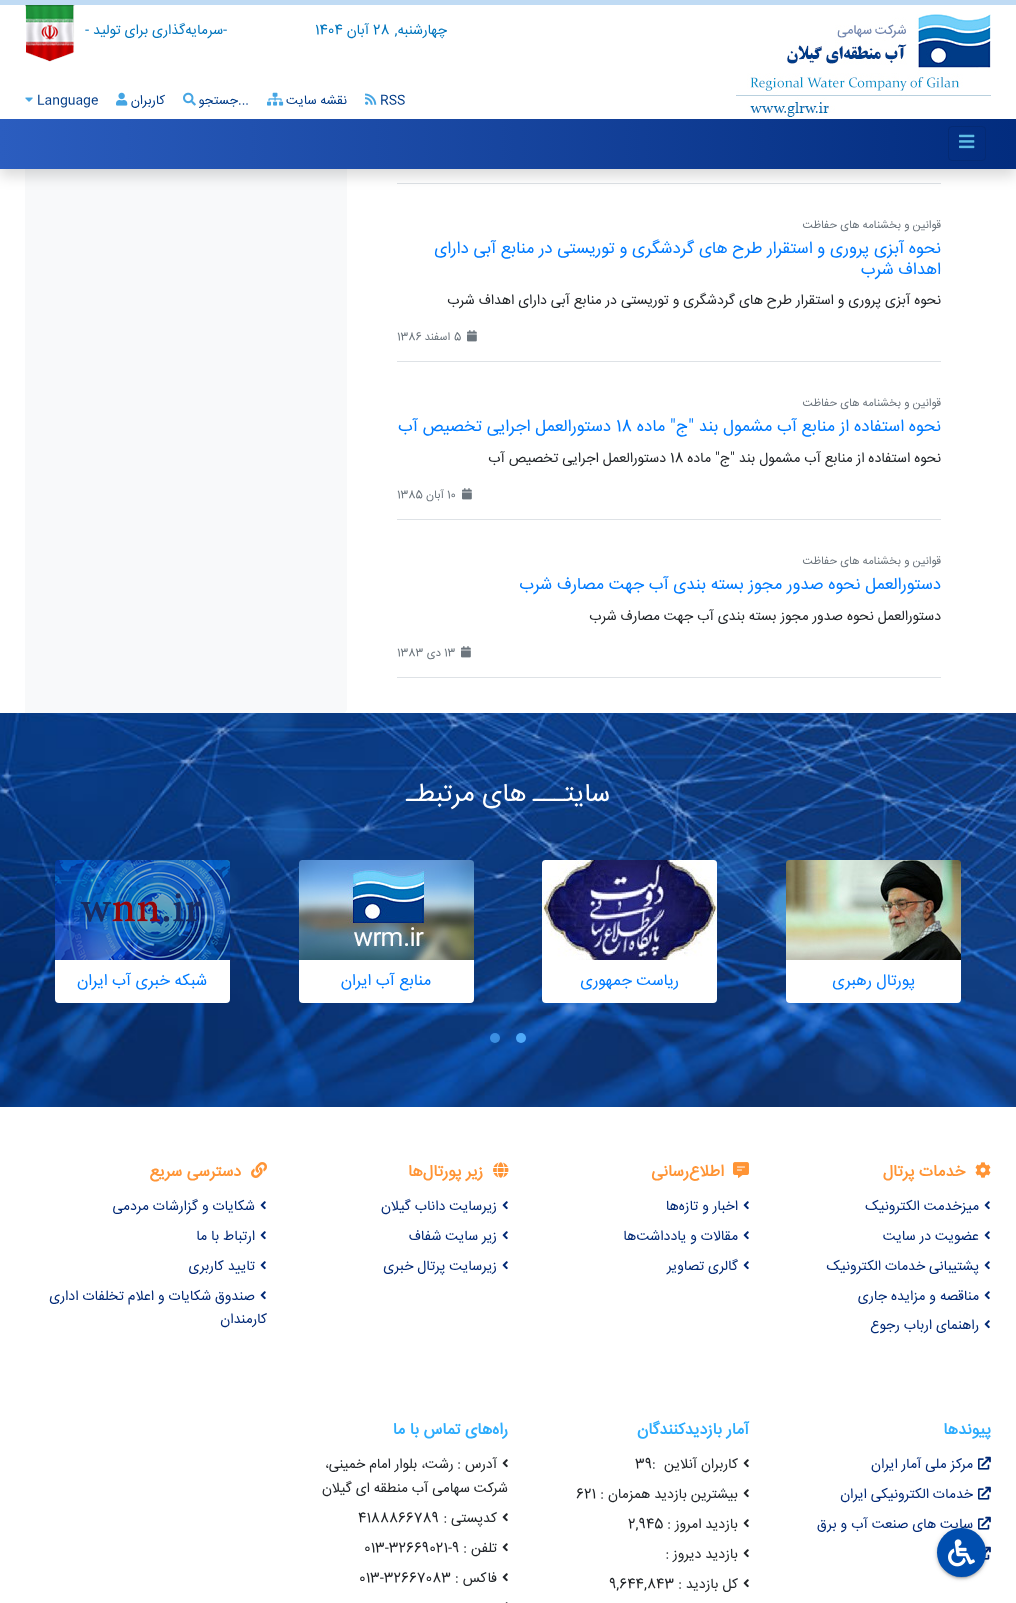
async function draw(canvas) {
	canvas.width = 1016;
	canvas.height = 1603;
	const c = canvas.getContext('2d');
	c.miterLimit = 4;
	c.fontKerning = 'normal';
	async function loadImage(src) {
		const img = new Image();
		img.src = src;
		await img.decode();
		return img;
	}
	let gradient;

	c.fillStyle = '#fff';
	c.fillRect(0, 0, 1016, 1603);
	c.fillStyle = '#dee2e6';
	c.fillRect(397, 183, 544, 1);
	c.fillStyle = '#f8f9fa';
	c.beginPath();
	c.moveTo(25, -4);
	c.lineTo(343, -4);
	c.bezierCurveTo(345, -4, 347, -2, 347, 0);
	c.lineTo(347, 709);
	c.bezierCurveTo(347, 711, 345, 713, 343, 713);
	c.lineTo(25, 713);
	c.closePath();
	c.fill();
	c.fillStyle = '#00000026';
	c.filter = 'blur(7px)';
	c.beginPath();
	c.rect(0, 7, 1016, 169);
	c.fill();
	c.filter = 'none';
	c.fillStyle = '#fff';
	c.fillRect(0, 5, 1016, 114);
	c.fillStyle = '#c0dbf4';
	c.fillRect(0, 0, 1016, 5);
	c.drawImage(await loadImage('img1.png'), 736, 14, 255, 103);
	c.direction = 'rtl';
	c.font = '14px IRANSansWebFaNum';
	c.fillStyle = '#0075bd';
	c.fillText('چهارشنبه,', 447, 34);
	c.direction = 'ltr';
	c.fillText('28', 373, 34);
	c.direction = 'rtl';
	c.fillText('آبان', 369, 34);
	c.direction = 'ltr';
	c.fillText('1404', 315, 34);
	c.fillText('-', 223, 34);
	c.direction = 'rtl';
	c.fillText('سرمایه‌گذاری برای تولید', 223, 34);
	c.direction = 'ltr';
	c.fillText('-', 85, 34);
	c.drawImage(await loadImage('img2.png'), 25, 5, 50, 57);
	c.font = '13px IRANSansWebFaNum';
	c.fillStyle = '#003b87';
	c.fillText('RSS', 380, 104);
	c.drawImage(await loadImage('img3.png'), 365, 93, 12, 12);
	c.direction = 'rtl';
	c.fillText('نقشه سایت', 347, 104);
	c.drawImage(await loadImage('img4.png'), 267, 92, 17, 14);
	c.direction = 'ltr';
	c.fillText('...', 238, 104);
	c.direction = 'rtl';
	c.fillText('جستجو', 238, 104);
	c.drawImage(await loadImage('img5.png'), 183, 92, 13, 14);
	c.fillText('کاربران', 165, 104);
	c.drawImage(await loadImage('img6.png'), 116, 92, 12, 14);
	c.direction = 'ltr';
	c.fillText('Language', 37, 104);
	c.drawImage(await loadImage('img7.png'), 25, 97, 8, 5);
	gradient = c.createLinearGradient(0, 144, 1016, 144);
	gradient.addColorStop(0, '#2b5dbf');
	gradient.addColorStop(1, '#022c7e');
	c.fillStyle = gradient;
	c.fillRect(0, 119, 1016, 50);
	c.beginPath();
	c.roundRect(948.5, 126.5, 37, 34, 3.5);
	c.strokeStyle = '#042a74';
	c.stroke();
	c.drawImage(await loadImage('img8.png'), 959, 134, 16, 15);
	c.fillStyle = '#dee2e6';
	c.fillRect(397, 361, 544, 1);
	c.direction = 'rtl';
	c.font = '11.25px IRANSansWebFaNum';
	c.fillStyle = '#6c757d';
	c.fillText('قوانین و بخشنامه های حفاظت', 941, 228);
	c.font = '16.8px IRANSansWebFaNum';
	c.fillStyle = '#007bff';
	c.fillText('نحوه آبزی پروری و استقرار طرح های گردشگری و توریستی در منابع آبی دارای', 941, 253);
	c.fillText('اهداف شرب', 941, 274);
	c.font = '14px IRANSansWebFaNum';
	c.fillStyle = '#212529';
	c.fillText('نحوه آبزی پروری و استقرار طرح های گردشگری و توریستی در منابع آبی دارای اهداف شرب', 941, 304);
	c.drawImage(await loadImage('img9.png'), 467, 330, 10, 12);
	c.direction = 'ltr';
	c.font = '11.25px IRANSansWebFaNum';
	c.fillStyle = '#6c757d';
	c.fillText('5', 454, 340);
	c.direction = 'rtl';
	c.fillText('اسفند', 450, 340);
	c.direction = 'ltr';
	c.fillText('1386', 397, 340);
	c.fillStyle = '#dee2e6';
	c.fillRect(397, 519, 544, 1);
	c.direction = 'rtl';
	c.fillStyle = '#6c757d';
	c.fillText('قوانین و بخشنامه های حفاظت', 941, 406);
	c.font = '16.8px IRANSansWebFaNum';
	c.fillStyle = '#007bff';
	c.fillText('نحوه استفاده از منابع آب مشمول بند "ج" ماده', 941, 431);
	c.direction = 'ltr';
	c.fillText('18', 616, 431);
	c.direction = 'rtl';
	c.fillText('دستورالعمل اجرایی تخصیص آب', 611, 431);
	c.font = '14px IRANSansWebFaNum';
	c.fillStyle = '#212529';
	c.fillText('نحوه استفاده از منابع آب مشمول بند "ج" ماده', 941, 462);
	c.direction = 'ltr';
	c.fillText('18', 670, 462);
	c.direction = 'rtl';
	c.fillText('دستورالعمل اجرایی تخصیص آب', 666, 462);
	c.drawImage(await loadImage('img9.png'), 462, 488, 10, 12);
	c.direction = 'ltr';
	c.font = '11.25px IRANSansWebFaNum';
	c.fillStyle = '#6c757d';
	c.fillText('10', 447, 498);
	c.direction = 'rtl';
	c.fillText('آبان', 444, 498);
	c.direction = 'ltr';
	c.fillText('1385', 397, 498);
	c.fillStyle = '#dee2e6';
	c.fillRect(397, 677, 544, 1);
	c.direction = 'rtl';
	c.fillStyle = '#6c757d';
	c.fillText('قوانین و بخشنامه های حفاظت', 941, 564);
	c.font = '16.8px IRANSansWebFaNum';
	c.fillStyle = '#007bff';
	c.fillText('دستورالعمل نحوه صدور مجوز بسته بندی آب جهت مصارف شرب', 941, 589);
	c.font = '14px IRANSansWebFaNum';
	c.fillStyle = '#212529';
	c.fillText('دستورالعمل نحوه صدور مجوز بسته بندی آب جهت مصارف شرب', 941, 620);
	c.drawImage(await loadImage('img9.png'), 461, 646, 10, 12);
	c.direction = 'ltr';
	c.font = '11.25px IRANSansWebFaNum';
	c.fillStyle = '#6c757d';
	c.fillText('13', 444, 656);
	c.direction = 'rtl';
	c.fillText('دی', 441, 656);
	c.direction = 'ltr';
	c.fillText('1383', 397, 656);
	c.drawImage(await loadImage('img10.png'), 0, 713, 1016, 394);
	c.direction = 'rtl';
	c.font = '26px IRANSansWebFaNum';
	c.fillStyle = '#fff';
	c.fillText('سایتـــ های مرتبطـ', 610, 801);
	c.drawImage(await loadImage('img11.png'), 786, 860, 175, 100);
	c.beginPath();
	c.roundRect(786, 960, 175, 43, [0, 0, 4, 4]);
	c.fill();
	c.font = '16px IRANSansWebFaNum';
	c.fillStyle = '#007bff';
	c.fillText('پورتال رهبری', 915, 985);
	c.drawImage(await loadImage('img12.png'), 542, 860, 175, 100);
	c.fillStyle = '#fff';
	c.beginPath();
	c.roundRect(542, 960, 175, 43, [0, 0, 4, 4]);
	c.fill();
	c.fillStyle = '#007bff';
	c.fillText('ریاست جمهوری', 679, 985);
	c.drawImage(await loadImage('img13.png'), 299, 860, 175, 100);
	c.fillStyle = '#fff';
	c.beginPath();
	c.roundRect(299, 960, 175, 43, [0, 0, 4, 4]);
	c.fill();
	c.fillStyle = '#007bff';
	c.fillText('منابع آب ایران', 431, 985);
	c.drawImage(await loadImage('img14.png'), 55, 860, 175, 100);
	c.fillStyle = '#fff';
	c.beginPath();
	c.roundRect(55, 960, 175, 43, [0, 0, 4, 4]);
	c.fill();
	c.fillStyle = '#007bff';
	c.fillText('شبکه خبری آب ایران', 207, 985);
	c.fillStyle = '#50aaf9';
	c.beginPath();
	c.arc(521, 1038, 5, 0, 2 * Math.PI);
	c.fill();
	c.fillStyle = '#50aaf9b3';
	c.beginPath();
	c.arc(495, 1038, 5, 0, 2 * Math.PI);
	c.fill();
	c.drawImage(await loadImage('img15.png'), 975, 1162, 16, 16);
	c.font = 'bold 16px IRANSansWebFaNum';
	c.fillStyle = '#ff9435';
	c.fillText('خدمات پرتال', 965, 1176);
	c.drawImage(await loadImage('img16.png'), 984, 1201, 6, 9);
	c.font = '14px IRANSansWebFaNum';
	c.fillStyle = '#002875';
	c.fillText('میزخدمت الکترونیک', 979, 1210);
	c.drawImage(await loadImage('img16.png'), 984, 1231, 6, 9);
	c.fillText('عضویت در سایت', 979, 1240);
	c.drawImage(await loadImage('img16.png'), 984, 1261, 6, 9);
	c.fillText('پشتیبانی خدمات الکترونیک', 979, 1270);
	c.drawImage(await loadImage('img16.png'), 984, 1291, 6, 9);
	c.fillText('مناقصه و مزایده جاری', 979, 1300);
	c.drawImage(await loadImage('img16.png'), 984, 1320, 6, 9);
	c.fillText('راهنمای ارباب رجوع', 979, 1329);
	c.drawImage(await loadImage('img17.png'), 733, 1162, 16, 16);
	c.font = 'bold 16px IRANSansWebFaNum';
	c.fillStyle = '#ff9435';
	c.fillText('اطلاع‌رسانی', 724, 1176);
	c.drawImage(await loadImage('img16.png'), 743, 1201, 6, 9);
	c.font = '14px IRANSansWebFaNum';
	c.fillStyle = '#002875';
	c.fillText('اخبار و تازه‌ها', 738, 1210);
	c.drawImage(await loadImage('img16.png'), 743, 1231, 6, 9);
	c.fillText('مقالات و یادداشت‌ها', 738, 1240);
	c.drawImage(await loadImage('img16.png'), 743, 1261, 6, 9);
	c.fillText('گالری تصاویر', 738, 1270);
	c.drawImage(await loadImage('img18.png'), 493, 1162, 16, 16);
	c.font = 'bold 16px IRANSansWebFaNum';
	c.fillStyle = '#ff9435';
	c.fillText('زیر پورتال‌ها', 483, 1176);
	c.drawImage(await loadImage('img16.png'), 502, 1201, 6, 9);
	c.font = '14px IRANSansWebFaNum';
	c.fillStyle = '#002875';
	c.fillText('زیرسایت داناب گیلان', 497, 1210);
	c.drawImage(await loadImage('img16.png'), 502, 1231, 6, 9);
	c.fillText('زیر سایت شفاف', 497, 1240);
	c.drawImage(await loadImage('img16.png'), 502, 1261, 6, 9);
	c.fillText('زیرسایت پرتال خبری', 497, 1270);
	c.drawImage(await loadImage('img19.png'), 251, 1162, 16, 16);
	c.font = 'bold 16px IRANSansWebFaNum';
	c.fillStyle = '#ff9435';
	c.fillText('دسترسی سریع', 241, 1176);
	c.drawImage(await loadImage('img16.png'), 260, 1201, 6, 9);
	c.font = '14px IRANSansWebFaNum';
	c.fillStyle = '#002875';
	c.fillText('شکایات و گزارشات مردمی', 255, 1210);
	c.drawImage(await loadImage('img16.png'), 260, 1231, 6, 9);
	c.fillText('ارتباط با ما', 255, 1240);
	c.drawImage(await loadImage('img16.png'), 260, 1261, 6, 9);
	c.fillText('تایید کاربری', 255, 1270);
	c.drawImage(await loadImage('img16.png'), 260, 1291, 6, 9);
	c.fillText('صندوق شکایات و اعلام تخلفات اداری', 255, 1300);
	c.fillText('کارمندان', 267, 1323);
	c.font = 'bold 16px IRANSansWebFaNum';
	c.fillStyle = '#2cacfd';
	c.fillText('پیوندها', 991, 1434);
	c.drawImage(await loadImage('img20.png'), 978, 1456, 13, 14);
	c.font = '14px IRANSansWebFaNum';
	c.fillStyle = '#002875';
	c.fillText('مرکز ملی آمار ایران', 973, 1468);
	c.drawImage(await loadImage('img20.png'), 978, 1486, 13, 14);
	c.fillText('خدمات الکترونیکی ایران', 973, 1498);
	c.drawImage(await loadImage('img20.png'), 978, 1516, 13, 14);
	c.fillText('سایت های صنعت آب و برق', 973, 1528);
	c.drawImage(await loadImage('img21.png'), 984, 1546, 7, 14);
	c.font = 'bold 16px IRANSansWebFaNum';
	c.fillStyle = '#2cacfd';
	c.fillText('آمار بازدیدکنندگان', 749, 1434);
	c.drawImage(await loadImage('img22.png'), 743, 1459, 6, 9);
	c.font = '14px IRANSansWebFaNum';
	c.fillStyle = '#212529';
	c.fillText('کاربران آنلاین', 738, 1468);
	c.direction = 'ltr';
	c.fillText('39:', 635, 1468);
	c.drawImage(await loadImage('img22.png'), 743, 1489, 6, 9);
	c.direction = 'rtl';
	c.fillText('بیشترین بازدید همزمان :', 738, 1498);
	c.direction = 'ltr';
	c.fillText('621', 576, 1498);
	c.drawImage(await loadImage('img22.png'), 743, 1519, 6, 9);
	c.direction = 'rtl';
	c.fillText('بازدید امروز :', 738, 1528);
	c.direction = 'ltr';
	c.fillText('2,945', 628, 1528);
	c.drawImage(await loadImage('img22.png'), 743, 1549, 6, 9);
	c.direction = 'rtl';
	c.fillText('بازدید دیروز :', 738, 1558);
	c.drawImage(await loadImage('img22.png'), 743, 1579, 6, 9);
	c.fillText('کل بازدید :', 738, 1588);
	c.direction = 'ltr';
	c.fillText('9,644,843', 609, 1588);
	c.direction = 'rtl';
	c.font = 'bold 16px IRANSansWebFaNum';
	c.fillStyle = '#2cacfd';
	c.fillText('راه‌های تماس با ما', 508, 1434);
	c.drawImage(await loadImage('img22.png'), 502, 1459, 6, 9);
	c.font = '14px IRANSansWebFaNum';
	c.fillStyle = '#212529';
	c.fillText('آدرس : رشت، بلوار امام خمینی،', 497, 1468);
	c.fillText('شرکت سهامی آب منطقه ای گیلان', 508, 1492);
	c.drawImage(await loadImage('img22.png'), 502, 1513, 6, 9);
	c.fillText('کدپستی :', 497, 1522);
	c.direction = 'ltr';
	c.fillText('4188866789', 358, 1522);
	c.drawImage(await loadImage('img22.png'), 502, 1543, 6, 9);
	c.direction = 'rtl';
	c.fillText('تلفن :', 497, 1552);
	c.direction = 'ltr';
	c.fillText('013-32669021-9', 364, 1552);
	c.drawImage(await loadImage('img22.png'), 502, 1573, 6, 9);
	c.direction = 'rtl';
	c.fillText('فاکس :', 497, 1582);
	c.direction = 'ltr';
	c.fillText('013-32667083', 359, 1582);
	c.drawImage(await loadImage('img23.png'), 505, 1602, 3, 1);
	c.fillStyle = '#00000033';
	c.filter = 'blur(2.5px)';
	c.beginPath();
	c.roundRect(937, 1529, 49, 49, 24.5);
	c.fill();
	c.filter = 'none';
	c.fillStyle = '#0000001f';
	c.filter = 'blur(0.5px)';
	c.beginPath();
	c.roundRect(939, 1533, 45, 45, 22.5);
	c.fill();
	c.filter = 'none';
	c.fillStyle = '#00000024';
	c.filter = 'blur(1px)';
	c.beginPath();
	c.roundRect(937, 1530, 49, 49, 24.5);
	c.fill();
	c.filter = 'none';
	c.fillStyle = '#004eaf';
	c.beginPath();
	c.arc(961.5, 1552.5, 24.5, 0, 2 * Math.PI);
	c.fill();
	c.drawImage(await loadImage('img24.png'), 948, 1539, 27, 28);
}

draw(document.querySelector('canvas'));
